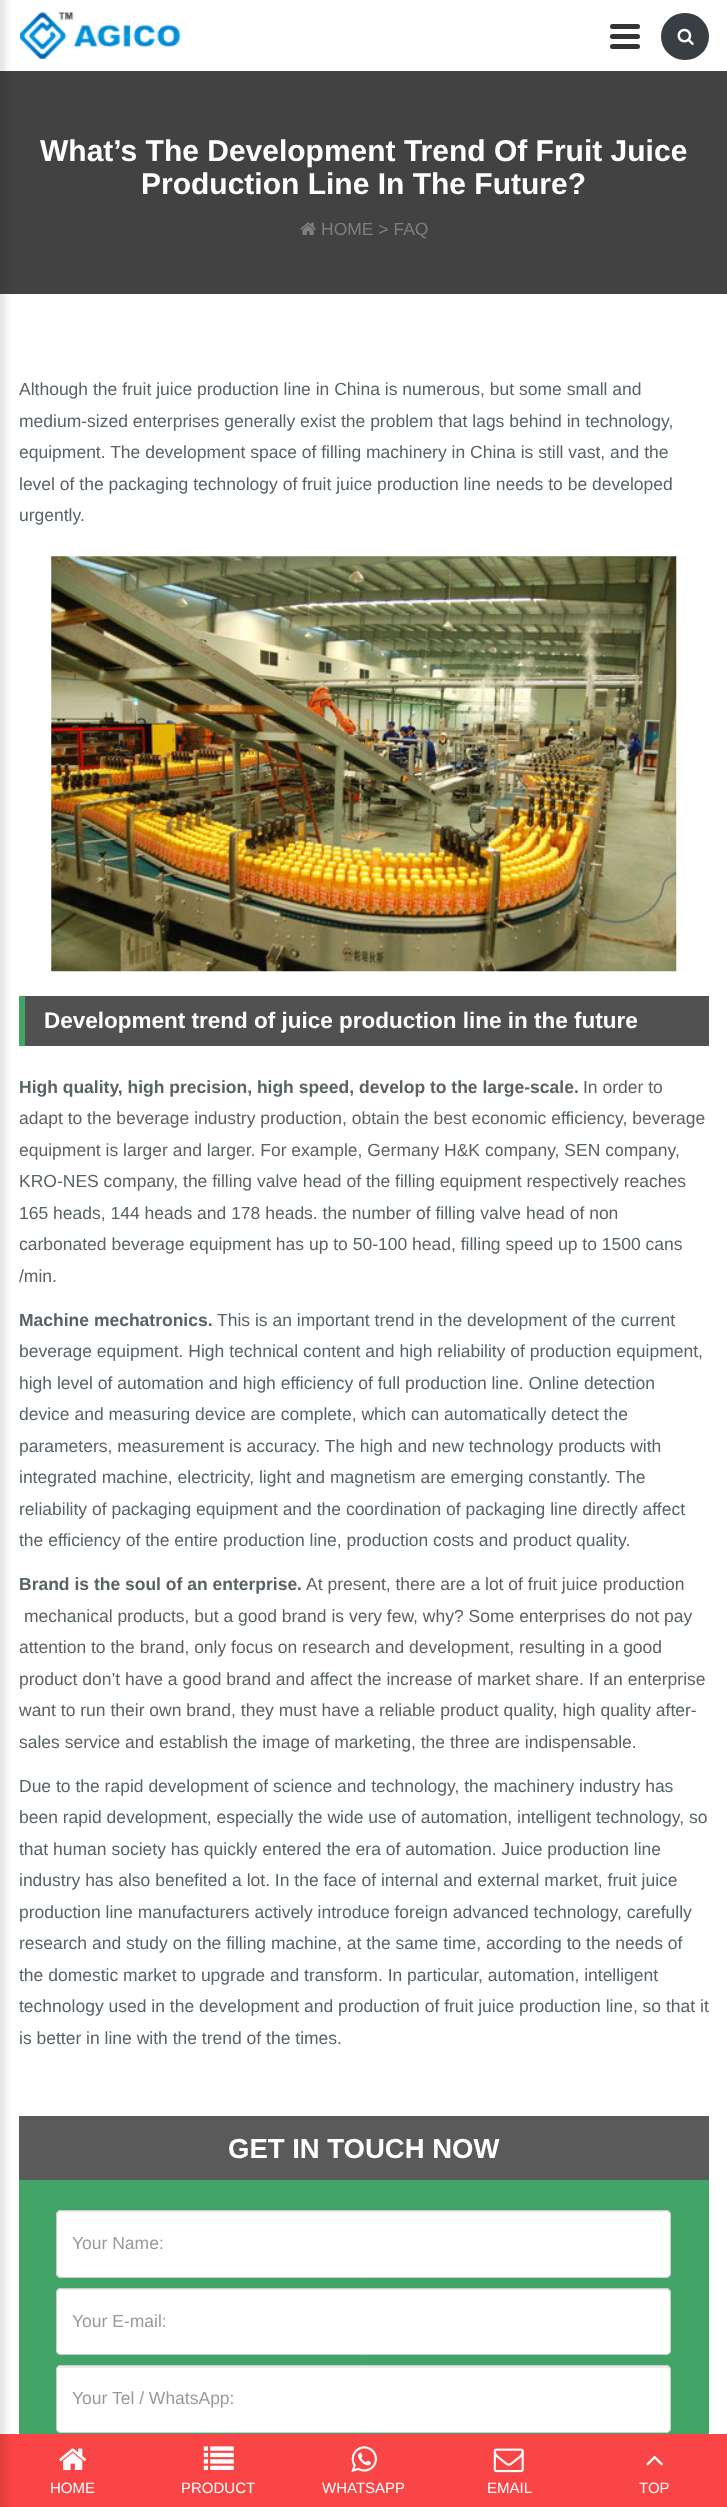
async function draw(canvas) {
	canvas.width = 727;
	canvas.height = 2507;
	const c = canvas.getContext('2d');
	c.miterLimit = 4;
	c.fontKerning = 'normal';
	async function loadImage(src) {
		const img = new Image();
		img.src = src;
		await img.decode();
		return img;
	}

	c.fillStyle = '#fff';
	c.fillRect(0, 0, 727, 2507);
	c.fillStyle = '#424242';
	c.fillRect(0, 71, 727, 223);
	c.fillStyle = '#f94545';
	c.fillRect(0, 2434, 727, 73);
	c.fillStyle = '#0000001a';
	c.filter = 'blur(3px)';
	c.beginPath();
	c.rect(-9, -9, 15, 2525);
	c.fill();
	c.filter = 'none';
	c.fillStyle = '#333';
	c.beginPath();
	c.roundRect(610, 34, 30, 5, 2.5);
	c.fill();
	c.beginPath();
	c.roundRect(610, 24, 30, 5, 2.5);
	c.fill();
	c.beginPath();
	c.roundRect(610, 44, 30, 5, 2.5);
	c.fill();
	c.drawImage(await loadImage('img1.png'), 19, 10, 162, 49);
	c.fillStyle = '#383e42';
	c.beginPath();
	c.roundRect(661, 13, 48, 47, 23.5);
	c.fill();
	c.drawImage(await loadImage('img2.png'), 677, 28, 17, 17);
	c.font = 'bold 30px Liberation Sans';
	c.fillStyle = '#fff';
	c.fillText('What’s The Development Trend Of Fruit Juice', 40, 161);
	c.fillText('Production Line In The Future?', 141, 194);
	c.drawImage(await loadImage('img3.png'), 300, 222, 16, 13);
	c.font = '17.5px Liberation Sans';
	c.fillStyle = '#7d7f7d';
	c.fillText('HOME > FAQ', 321, 235);
	c.fillStyle = '#596267';
	for (const [text, x, y] of [
		['Although the fruit juice production line in China is numerous, but some small and', 19, 395],
		['medium-sized enterprises generally exist the problem that lags behind in technology,', 19, 427],
		['equipment. The development space of filling machinery in China is still vast, and the', 19, 458],
		['level of the packaging technology of fruit juice production line needs to be developed', 19, 490],
		['urgently.', 19, 521],
	]) {
		c.fillText(text, x, y);
	}
	c.drawImage(await loadImage('img4.png'), 51, 556, 626, 416);
	c.fillStyle = '#515151';
	c.fillRect(25, 996, 684, 50);
	c.fillStyle = '#42a466';
	c.fillRect(19, 996, 6, 50);
	c.font = 'bold 22.5px Liberation Sans';
	c.fillStyle = '#fff';
	c.fillText('Development trend of juice production line in the future', 44, 1028);
	c.font = 'bold 17.5px Liberation Sans';
	c.fillStyle = '#596267';
	c.fillText('High quality, high precision, high speed, develop to the large-scale.', 19, 1093);
	c.font = '17.5px Liberation Sans';
	for (const [text, x, y] of [
		['In order to', 583, 1093],
		['adapt to the beverage industry production, obtain the best economic efficiency, beverage', 19, 1124],
		['equipment is larger and larger. For example, Germany H&K company, SEN company,', 19, 1156],
		['KRO-NES company, the filling valve head of the filling equipment respectively reaches', 19, 1187],
		['165 heads, 144 heads and 178 heads. the number of filling valve head of non', 19, 1219],
		['carbonated beverage equipment has up to 50-100 head, filling speed up to 1500 cans', 19, 1250],
		['/min.', 19, 1282],
	]) {
		c.fillText(text, x, y);
	}
	c.font = 'bold 17.5px Liberation Sans';
	c.fillText('Machine mechatronics.', 19, 1326);
	c.font = '17.5px Liberation Sans';
	for (const [text, x, y] of [
		['This is an important trend in the development of the current', 217, 1326],
		['beverage equipment. High technical content and high reliability of production equipment,', 19, 1357],
		['high level of automation and high efficiency of full production line. Online detection', 19, 1389],
		['device and measuring device are complete, which can automatically detect the', 19, 1420],
		['parameters, measurement is accuracy. The high and new technology products with', 19, 1452],
		['integrated machine, electricity, light and magnetism are emerging constantly. The', 19, 1483],
		['reliability of packaging equipment and the coordination of packaging line directly affect', 19, 1515],
		['the efficiency of the entire production line, production costs and product quality.', 19, 1546],
	]) {
		c.fillText(text, x, y);
	}
	c.font = 'bold 17.5px Liberation Sans';
	c.fillText('Brand is the soul of an enterprise.', 19, 1590);
	c.font = '17.5px Liberation Sans';
	for (const [text, x, y] of [
		['At present, there are a lot of fruit juice production', 306, 1590],
		['mechanical products, but a good brand is very few, why? Some enterprises do not pay', 24, 1622],
		['attention to the brand, only focus on research and development, resulting in a good', 19, 1653],
		['product don’t have a good brand and affect the increase of market share. If an enterprise', 19, 1685],
		['want to run their own brand, they must have a reliable product quality, high quality after-', 19, 1716],
		['sales service and establish the image of marketing, the three are indispensable.', 19, 1748],
		['Due to the rapid development of science and technology, the machinery industry has', 19, 1792],
		['been rapid development, especially the wide use of automation, intelligent technology, so', 19, 1823],
		['that human society has quickly entered the era of automation. Juice production line', 19, 1855],
		['industry has also benefited a lot. In the face of internal and external market, fruit juice', 19, 1886],
		['production line manufacturers actively introduce foreign advanced technology, carefully', 19, 1918],
		['research and study on the filling machine, at the same time, according to the needs of', 19, 1949],
		['the domestic market to upgrade and transform. In particular, automation, intelligent', 19, 1981],
		['technology used in the development and production of fruit juice production line, so that it', 19, 2012],
		['is better in line with the trend of the times.', 19, 2044],
	]) {
		c.fillText(text, x, y);
	}
	c.fillStyle = '#5a5a5a';
	c.fillRect(19, 2116, 690, 64);
	c.font = 'bold 27.5px Liberation Sans';
	c.fillStyle = '#fff';
	c.fillText('GET IN TOUCH NOW', 228, 2158);
	c.fillStyle = '#42a466';
	c.fillRect(19, 2180, 690, 254);
	c.fillStyle = '#fff';
	c.beginPath();
	c.roundRect(56, 2210, 615, 68, 5);
	c.fill();
	c.fillStyle = '#ececec';
	c.beginPath();
	c.moveTo(61, 2212);
	c.lineTo(666, 2212);
	c.bezierCurveTo(668, 2212, 670, 2214, 670, 2216);
	c.lineTo(670, 2215);
	c.bezierCurveTo(670, 2213, 668, 2211, 666, 2211);
	c.lineTo(62, 2211);
	c.bezierCurveTo(60, 2211, 58, 2213, 58, 2215);
	c.lineTo(58, 2216);
	c.bezierCurveTo(58, 2214, 59, 2212, 61, 2212);
	c.closePath();
	c.fill();
	c.beginPath();
	c.roundRect(56.5, 2210.5, 614, 67, 4.5);
	c.strokeStyle = '#ccc';
	c.stroke();
	c.font = '17.5px Liberation Sans';
	c.fillStyle = '#999';
	c.fillText('Your Name:', 72, 2249);
	c.fillStyle = '#fff';
	c.beginPath();
	c.roundRect(56, 2288, 615, 67, 5);
	c.fill();
	c.fillStyle = '#ececec';
	c.beginPath();
	c.moveTo(61, 2290);
	c.lineTo(666, 2290);
	c.bezierCurveTo(668, 2290, 670, 2292, 670, 2294);
	c.lineTo(670, 2293);
	c.bezierCurveTo(670, 2291, 668, 2289, 666, 2289);
	c.lineTo(62, 2289);
	c.bezierCurveTo(60, 2289, 58, 2291, 58, 2293);
	c.lineTo(58, 2294);
	c.bezierCurveTo(58, 2292, 59, 2290, 61, 2290);
	c.closePath();
	c.fill();
	c.beginPath();
	c.roundRect(56.5, 2288.5, 614, 66, 4.5);
	c.stroke();
	c.fillStyle = '#999';
	c.fillText('Your E-mail:', 72, 2327);
	c.fillStyle = '#fff';
	c.beginPath();
	c.roundRect(56, 2365, 615, 68, 5);
	c.fill();
	c.fillStyle = '#ececec';
	c.beginPath();
	c.moveTo(61, 2368);
	c.lineTo(666, 2368);
	c.bezierCurveTo(668, 2368, 670, 2369, 670, 2371);
	c.lineTo(670, 2370);
	c.bezierCurveTo(670, 2368, 668, 2366, 666, 2366);
	c.lineTo(62, 2366);
	c.bezierCurveTo(60, 2366, 58, 2368, 58, 2370);
	c.lineTo(58, 2371);
	c.bezierCurveTo(58, 2369, 59, 2368, 61, 2368);
	c.closePath();
	c.fill();
	c.beginPath();
	c.roundRect(56.5, 2365.5, 614, 67, 4.5);
	c.stroke();
	c.fillStyle = '#999';
	c.fillText('Your Tel / WhatsApp:', 72, 2404);
	c.drawImage(await loadImage('img5.png'), 59, 2448, 28, 22);
	c.font = '15px Liberation Sans';
	c.fillStyle = '#fff';
	c.fillText('HOME', 50, 2493);
	c.drawImage(await loadImage('img6.png'), 203, 2446, 31, 24);
	c.fillText('PRODUCT', 181, 2493);
	c.drawImage(await loadImage('img7.png'), 351, 2446, 26, 27);
	c.fillText('WHATSAPP', 322, 2493);
	c.drawImage(await loadImage('img8.png'), 493, 2448, 31, 25);
	c.fillText('EMAIL', 487, 2493);
	c.drawImage(await loadImage('img9.png'), 646, 2455, 17, 11);
	c.fillText('TOP', 639, 2493);
}

draw(document.querySelector('canvas'));
